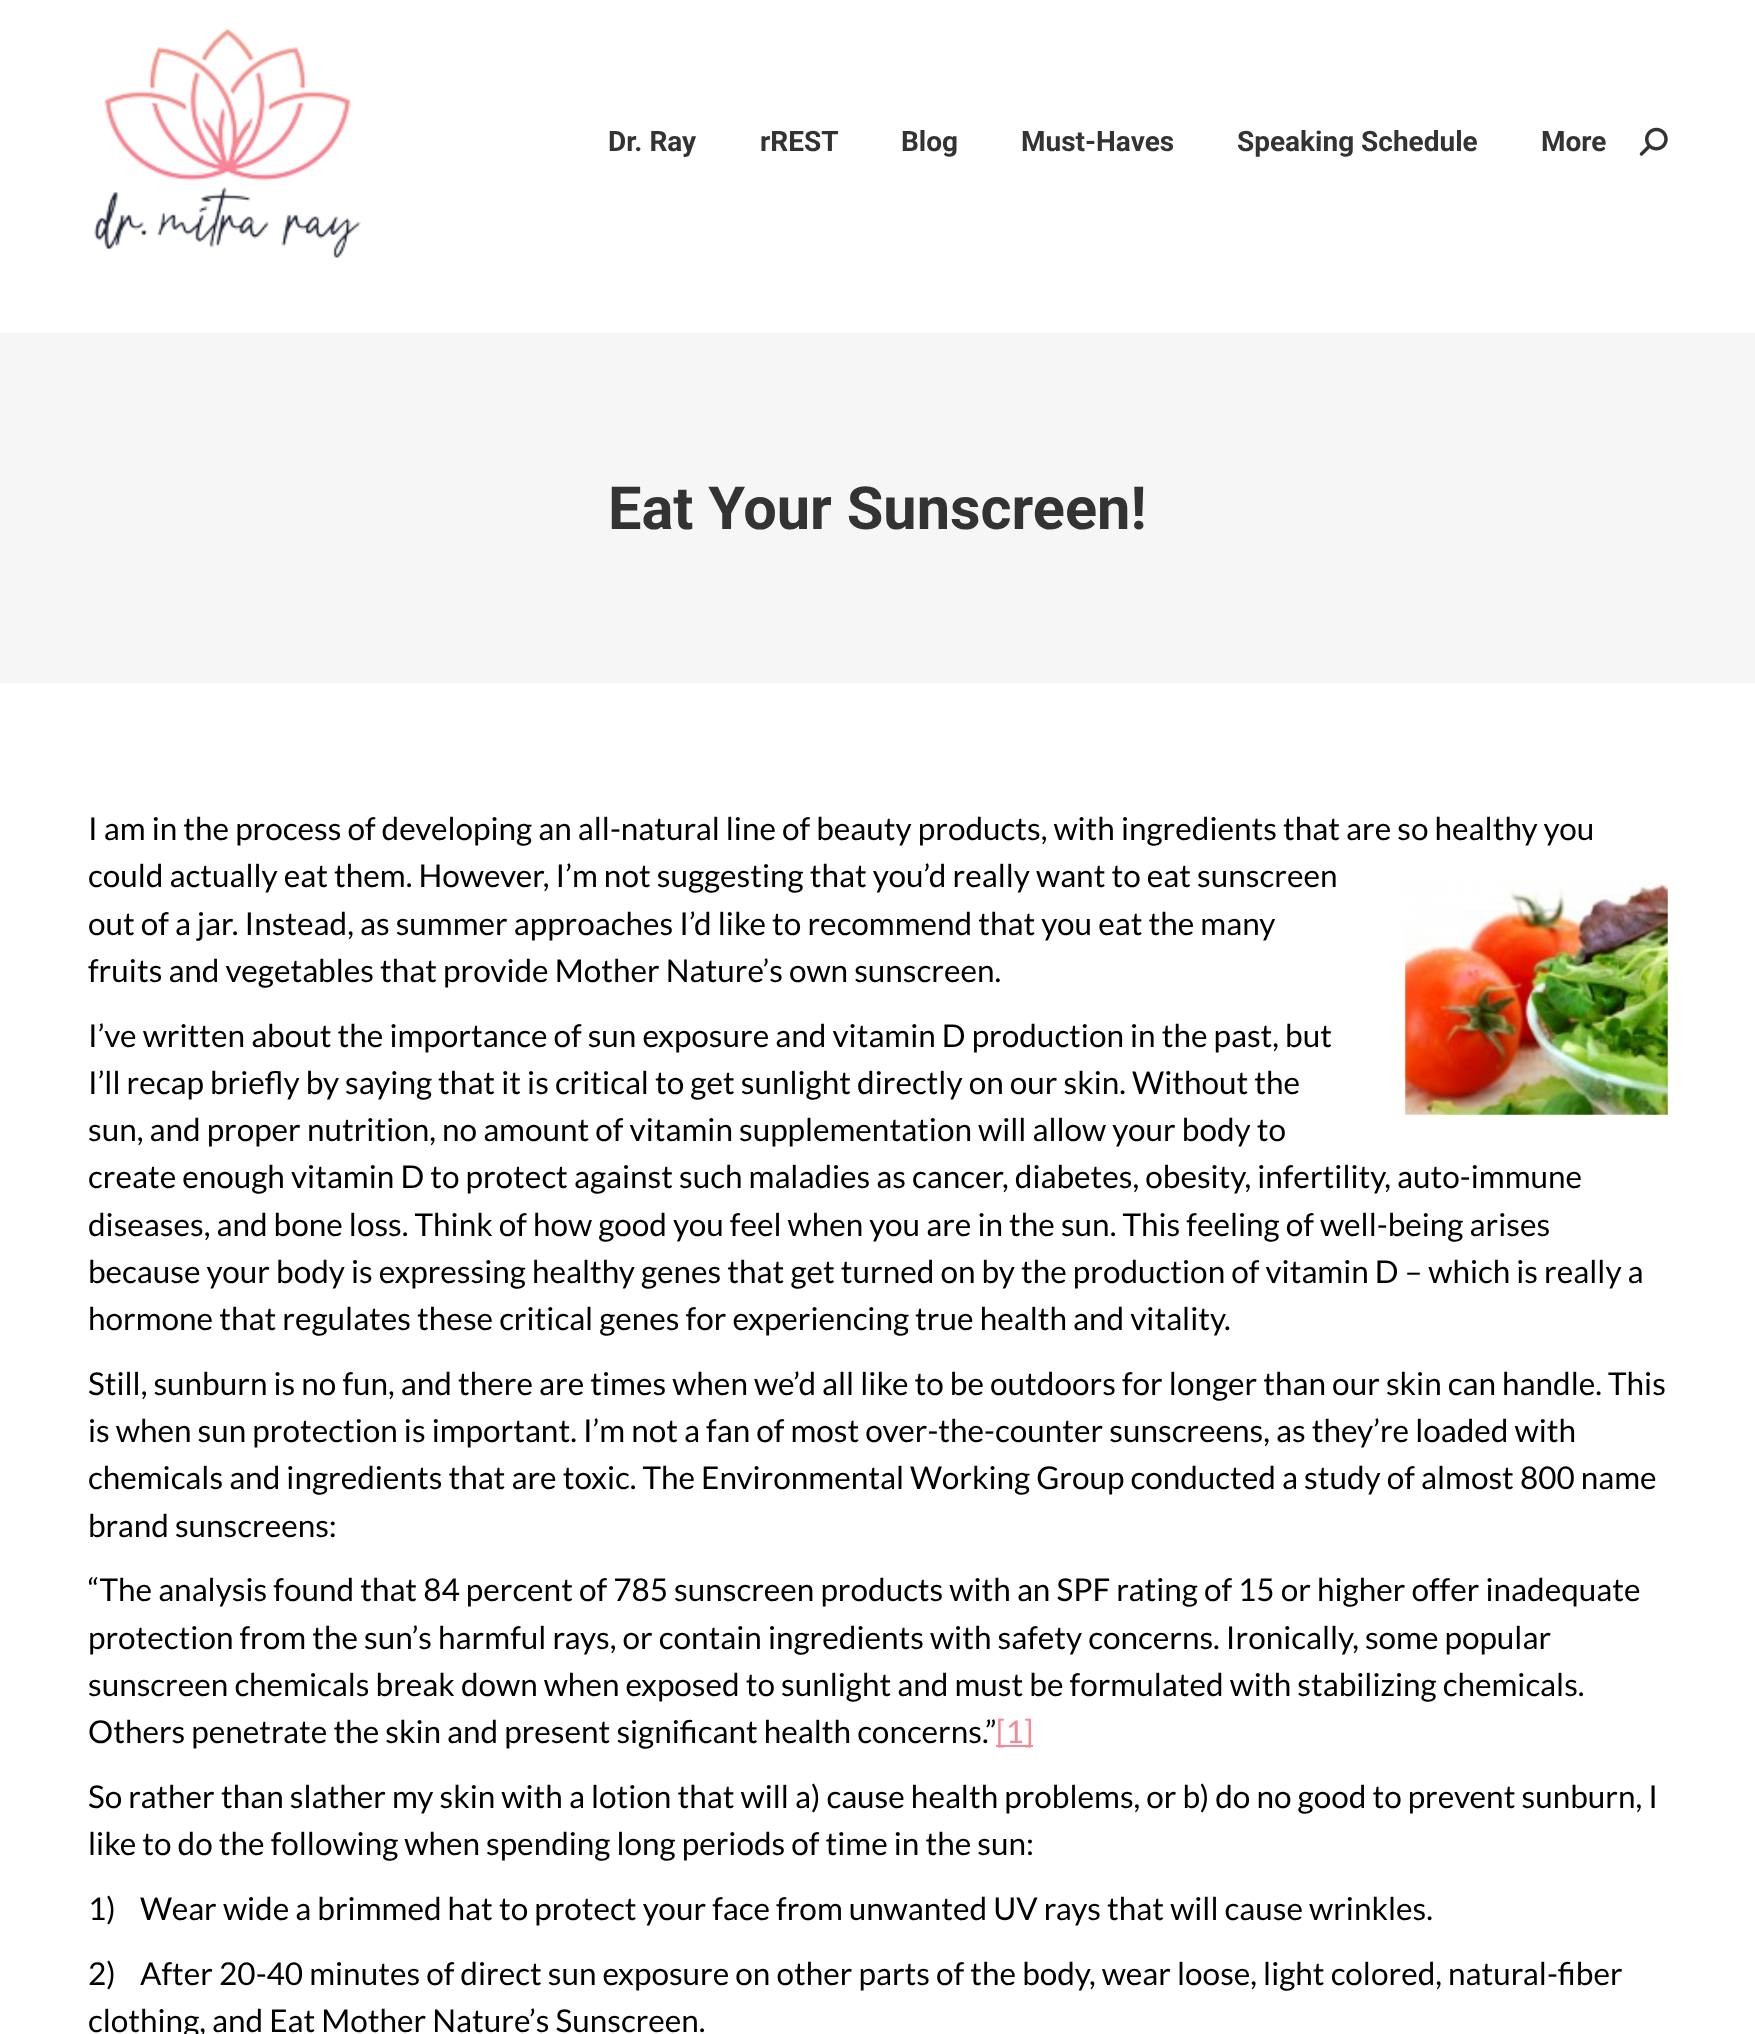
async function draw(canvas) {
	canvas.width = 1755;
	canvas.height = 2034;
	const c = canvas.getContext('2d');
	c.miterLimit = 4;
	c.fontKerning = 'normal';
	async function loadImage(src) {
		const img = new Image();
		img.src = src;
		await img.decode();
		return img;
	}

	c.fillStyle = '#fff';
	c.fillRect(0, 0, 1755, 2034);
	c.drawImage(await loadImage('img1.png'), 94, 28, 267, 230);
	c.font = 'bold 28px Roboto';
	c.fillStyle = '#333';
	for (const [text, x, y] of [
		['Dr. Ray', 608, 151],
		['rREST', 760, 151],
		['Blog', 901, 151],
		['Must-Haves', 1021, 151],
		['Speaking Schedule', 1237, 151],
		['More', 1541, 151],
	]) {
		c.fillText(text, x, y);
	}
	c.drawImage(await loadImage('img2.png'), 1639, 127, 29, 29);
	c.fillStyle = '#f6f6f6';
	c.fillRect(0, 333, 1755, 350);
	c.font = 'bold 59.5px Roboto';
	c.fillStyle = '#333';
	c.fillText('Eat Your Sunscreen!', 608, 529);
	c.font = '31.5px Lato';
	c.fillStyle = '#000';
	c.fillText('I am in the process of developing an all-natural line of beauty products, with ingredients that are so healthy you', 88, 840);
	c.fillText('could actually eat them. However, I’m not suggesting that you’d really want to eat sunscreen', 88, 887);
	c.drawImage(await loadImage('img3.png'), 1405, 880, 263, 235);
	for (const [text, x, y] of [
		['out of a jar. Instead, as summer approaches I’d like to recommend that you eat the many', 88, 935],
		['fruits and vegetables that provide Mother Nature’s own sunscreen.', 88, 982],
		['I’ve written about the importance of sun exposure and vitamin D production in the past, but', 88, 1047],
		['I’ll recap briefly by saying that it is critical to get sunlight directly on our skin. Without the', 88, 1094],
		['sun, and proper nutrition, no amount of vitamin supplementation will allow your body to', 88, 1141],
		['create enough vitamin D to protect against such maladies as cancer, diabetes, obesity, infertility, auto-immune', 88, 1188],
		['diseases, and bone loss. Think of how good you feel when you are in the sun. This feeling of well-being arises', 88, 1236],
		['because your body is expressing healthy genes that get turned on by the production of vitamin D – which is really a', 88, 1283],
		['hormone that regulates these critical genes for experiencing true health and vitality.', 88, 1330],
		['Still, sunburn is no fun, and there are times when we’d all like to be outdoors for longer than our skin can handle. This', 88, 1395],
		['is when sun protection is important. I’m not a fan of most over-the-counter sunscreens, as they’re loaded with', 88, 1442],
		['chemicals and ingredients that are toxic. The Environmental Working Group conducted a study of almost 800 name', 88, 1489],
		['brand sunscreens:', 88, 1537],
		['“The analysis found that 84 percent of 785 sunscreen products with an SPF rating of 15 or higher offer inadequate', 88, 1601],
		['protection from the sun’s harmful rays, or contain ingredients with safety concerns. Ironically, some popular', 88, 1649],
		['sunscreen chemicals break down when exposed to sunlight and must be formulated with stabilizing chemicals.', 88, 1696],
		['Others penetrate the skin and present significant health concerns.”', 88, 1743],
	]) {
		c.fillText(text, x, y);
	}
	c.fillStyle = '#f48a96';
	c.fillRect(996, 1745, 37, 2);
	c.fillText('[1]', 996, 1743);
	c.fillStyle = '#000';
	for (const [text, x, y] of [
		['So rather than slather my skin with a lotion that will a) cause health problems, or b) do no good to prevent sunburn, I', 88, 1808],
		['like to do the following when spending long periods of time in the sun:', 88, 1855],
		['1)    Wear wide a brimmed hat to protect your face from unwanted UV rays that will cause wrinkles.', 88, 1920],
		['2)    After 20-40 minutes of direct sun exposure on other parts of the body, wear loose, light colored, natural-fiber', 88, 1985],
		['clothing, and Eat Mother Nature’s Sunscreen.', 88, 2032],
	]) {
		c.fillText(text, x, y);
	}
}

draw(document.querySelector('canvas'));
